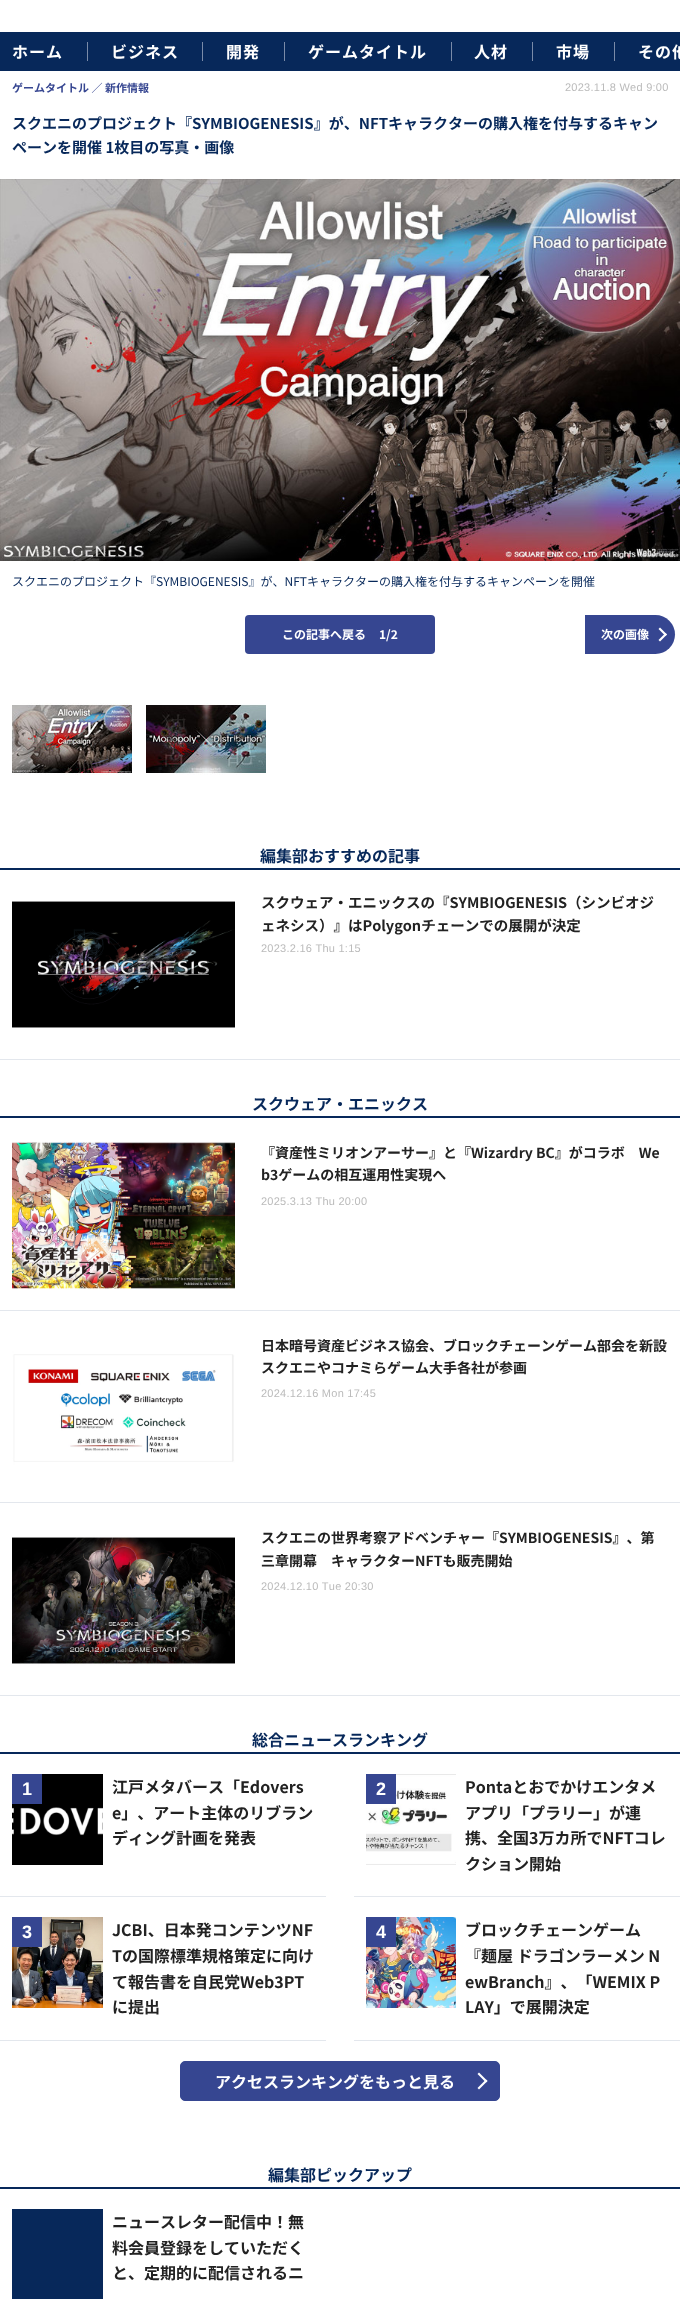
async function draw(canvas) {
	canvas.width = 680;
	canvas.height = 2299;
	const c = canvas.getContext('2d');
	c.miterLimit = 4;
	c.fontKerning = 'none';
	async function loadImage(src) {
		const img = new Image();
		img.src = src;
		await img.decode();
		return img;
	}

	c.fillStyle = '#fff';
	c.fillRect(0, 0, 680, 2299);
	c.fillStyle = '#07285a';
	c.fillRect(0, 32, 680, 39);
	c.letterSpacing = '1px';
	c.font = 'bold 16px Noto Sans JP';
	c.fillStyle = '#fff';
	c.fillText('ホーム', 12, 58);
	c.fillStyle = '#7a8ba8';
	c.fillRect(87, 42, 1, 19);
	c.fillStyle = '#fff';
	c.fillText('ビジネス', 111, 58);
	c.fillStyle = '#7a8ba8';
	c.fillRect(202, 42, 1, 19);
	c.fillStyle = '#fff';
	c.fillText('開発', 226, 58);
	c.fillStyle = '#7a8ba8';
	c.fillRect(284, 42, 1, 19);
	c.fillStyle = '#fff';
	c.fillText('ゲームタイトル', 308, 58);
	c.fillStyle = '#7a8ba8';
	c.fillRect(451, 42, 1, 19);
	c.fillStyle = '#fff';
	c.fillText('人材', 474, 58);
	c.fillStyle = '#7a8ba8';
	c.fillRect(532, 42, 1, 19);
	c.fillStyle = '#fff';
	c.fillText('市場', 556, 58);
	c.fillStyle = '#7a8ba8';
	c.fillRect(614, 42, 1, 19);
	c.fillStyle = '#fff';
	c.fillText('その他', 638, 58);
	c.letterSpacing = '0px';
	c.font = 'bold 11px Noto Sans JP';
	c.fillStyle = '#364691';
	c.fillText('ゲームタイトル ／ 新作情報', 12, 92);
	c.letterSpacing = '0.25px';
	c.font = '11px Liberation Sans';
	c.fillStyle = '#bbb';
	c.fillText('2023.11.8 Wed 9:00', 565, 91);
	c.letterSpacing = '0px';
	c.font = 'bold 15px Noto Sans JP';
	c.fillStyle = '#07285a';
	c.fillText('スクエニのプロジェクト『SYMBIOGENESIS』が、NFTキャラクターの購入権を付与するキャン', 12, 129);
	c.fillText('ペーンを開催 1枚目の写真・画像', 12, 153);
	c.drawImage(await loadImage('img1.png'), 0, 179, 680, 382);
	c.font = '12px Noto Sans JP';
	c.fillText('スクエニのプロジェクト『SYMBIOGENESIS』が、NFTキャラクターの購入権を付与するキャンペーンを開催', 12, 586);
	c.fillStyle = '#364691';
	c.beginPath();
	c.roundRect(245, 615, 190, 39, 4);
	c.fill();
	c.font = 'bold 12px Noto Sans JP';
	c.fillStyle = '#fff';
	c.fillText('この記事へ戻る', 282, 639);
	c.fillText('1/2', 379, 639);
	c.fillStyle = '#364691';
	c.beginPath();
	c.roundRect(585, 615, 90, 39, [0, 19.5, 19.5, 0]);
	c.fill();
	c.fillStyle = '#fff';
	c.fillText('次の画像', 601, 639);
	c.beginPath();
	c.moveTo(660, 627.5);
	c.lineTo(667, 634.5);
	c.lineTo(665.5, 636);
	c.lineTo(658.5, 629);
	c.closePath();
	c.fill();
	c.beginPath();
	c.moveTo(665.5, 633);
	c.lineTo(667, 634.5);
	c.lineTo(660, 641.5);
	c.lineTo(658.5, 640);
	c.closePath();
	c.fill();
	c.drawImage(await loadImage('img2.png'), 12, 703, 120, 72);
	c.drawImage(await loadImage('img3.png'), 146, 703, 120, 72);
	c.fillStyle = '#07285a';
	c.fillRect(0, 868, 680, 2);
	c.font = 'bold 16px Noto Sans JP';
	c.fillText('編集部おすすめの記事', 260, 862);
	c.fillStyle = '#e3e7ed';
	c.fillRect(0, 1059, 680, 1);
	c.drawImage(await loadImage('img4.png'), 12, 890, 223, 149);
	c.font = 'bold 14.5px Noto Sans JP';
	c.fillStyle = '#222';
	c.fillText('スクウェア・エニックスの『SYMBIOGENESIS（シンビオジ', 261, 908);
	c.fillText('ェネシス）』はPolygonチェーンでの展開が決定', 261, 931);
	c.letterSpacing = '0.25px';
	c.font = '11px Liberation Sans';
	c.fillStyle = '#bbb';
	c.fillText('2023.2.16 Thu 1:15', 261, 952);
	c.fillStyle = '#07285a';
	c.fillRect(0, 1116, 680, 2);
	c.letterSpacing = '0px';
	c.font = 'bold 16px Noto Sans JP';
	c.fillText('スクウェア・エニックス', 252, 1110);
	c.fillStyle = '#e3e7ed';
	c.fillRect(0, 1310, 680, 1);
	c.drawImage(await loadImage('img5.png'), 12, 1141, 223, 149);
	c.font = 'bold 14px Noto Sans JP';
	c.fillStyle = '#222';
	c.fillText('『資産性ミリオンアーサー』と『Wizardry BC』がコラボ　We', 261, 1158);
	c.fillText('b3ゲームの相互運用性実現へ', 261, 1180);
	c.letterSpacing = '0.25px';
	c.font = '11px Liberation Sans';
	c.fillStyle = '#bbb';
	c.fillText('2025.3.13 Thu 20:00', 261, 1205);
	c.fillStyle = '#e3e7ed';
	c.fillRect(0, 1502, 680, 1);
	c.drawImage(await loadImage('img6.png'), 12, 1334, 223, 148);
	c.letterSpacing = '0px';
	c.font = 'bold 14px Noto Sans JP';
	c.fillStyle = '#222';
	c.fillText('日本暗号資産ビジネス協会、ブロックチェーンゲーム部会を新設', 261, 1351);
	c.fillText('スクエニやコナミらゲーム大手各社が参画', 261, 1373);
	c.letterSpacing = '0.25px';
	c.font = '11px Liberation Sans';
	c.fillStyle = '#bbb';
	c.fillText('2024.12.16 Mon 17:45', 261, 1397);
	c.fillStyle = '#e3e7ed';
	c.fillRect(0, 1695, 680, 1);
	c.drawImage(await loadImage('img7.png'), 12, 1526, 223, 149);
	c.letterSpacing = '0px';
	c.font = 'bold 14px Noto Sans JP';
	c.fillStyle = '#222';
	c.fillText('スクエニの世界考察アドベンチャー『SYMBIOGENESIS』、第', 261, 1543);
	c.fillText('三章開幕　キャラクターNFTも販売開始', 261, 1566);
	c.letterSpacing = '0.25px';
	c.font = '11px Liberation Sans';
	c.fillStyle = '#bbb';
	c.fillText('2024.12.10 Tue 20:30', 261, 1590);
	c.fillStyle = '#07285a';
	c.fillRect(0, 1752, 680, 2);
	c.letterSpacing = '0px';
	c.font = 'bold 16px Noto Sans JP';
	c.fillText('総合ニュースランキング', 252, 1746);
	c.fillStyle = '#e3e7ed';
	c.fillRect(0, 1896, 326, 1);
	c.drawImage(await loadImage('img8.png'), 12, 1774, 91, 91);
	c.fillStyle = '#364691';
	c.fillRect(12, 1774, 30, 30);
	c.font = 'bold 18px Liberation Sans';
	c.fillStyle = '#fff';
	c.fillText('1', 22, 1795);
	c.font = 'bold 16px Noto Sans JP';
	c.fillStyle = '#222';
	for (const [text, x, y] of [
		['江戸メタバース「Edovers', 112, 1793],
		['e」、アート主体のリブラン', 112, 1819],
		['ディング計画を発表', 112, 1844],
	]) {
		c.fillText(text, x, y);
	}
	c.fillStyle = '#e3e7ed';
	c.fillRect(354, 1896, 326, 1);
	c.drawImage(await loadImage('img9.png'), 366, 1774, 90, 91);
	c.fillStyle = '#364691';
	c.fillRect(366, 1774, 30, 30);
	c.font = 'bold 18px Liberation Sans';
	c.fillStyle = '#fff';
	c.fillText('2', 376, 1795);
	c.font = 'bold 16px Noto Sans JP';
	c.fillStyle = '#222';
	for (const [text, x, y] of [
		['Pontaとおでかけエンタメ', 465, 1793],
		['アプリ「プラリー」が連', 465, 1819],
		['携、全国3万カ所でNFTコレ', 465, 1844],
		['クション開始', 465, 1870],
	]) {
		c.fillText(text, x, y);
	}
	c.fillStyle = '#e3e7ed';
	c.fillRect(0, 2040, 326, 1);
	c.drawImage(await loadImage('img10.png'), 12, 1917, 91, 91);
	c.fillStyle = '#364691';
	c.fillRect(12, 1917, 30, 30);
	c.font = 'bold 18px Liberation Sans';
	c.fillStyle = '#fff';
	c.fillText('3', 22, 1938);
	c.font = 'bold 16px Noto Sans JP';
	c.fillStyle = '#222';
	for (const [text, x, y] of [
		['JCBI、日本発コンテンツNF', 112, 1936],
		['Tの国際標準規格策定に向け', 112, 1962],
		['て報告書を自民党Web3PT', 112, 1988],
		['に提出', 112, 2013],
	]) {
		c.fillText(text, x, y);
	}
	c.fillStyle = '#e3e7ed';
	c.fillRect(354, 2040, 326, 1);
	c.drawImage(await loadImage('img11.png'), 366, 1917, 90, 91);
	c.fillStyle = '#364691';
	c.fillRect(366, 1917, 30, 30);
	c.font = 'bold 18px Liberation Sans';
	c.fillStyle = '#fff';
	c.fillText('4', 376, 1938);
	c.font = 'bold 16px Noto Sans JP';
	c.fillStyle = '#222';
	for (const [text, x, y] of [
		['ブロックチェーンゲーム', 465, 1936],
		['『麺屋 ドラゴンラーメン N', 465, 1962],
		['ewBranch』、「WEMIX P', 465, 1988],
		['LAY」で展開決定', 465, 2013],
	]) {
		c.fillText(text, x, y);
	}
	c.fillStyle = '#364691';
	c.beginPath();
	c.roundRect(180.5, 2061.5, 319, 39, 4.5);
	c.fill();
	c.strokeStyle = '#364691';
	c.stroke();
	c.fillStyle = '#fff';
	c.fillText('アクセスランキングをもっと見る', 215, 2088);
	c.beginPath();
	c.moveTo(479, 2072.5);
	c.lineTo(487.5, 2081);
	c.lineTo(486, 2082.5);
	c.lineTo(477.5, 2074);
	c.closePath();
	c.fill();
	c.beginPath();
	c.moveTo(486, 2079.5);
	c.lineTo(487.5, 2081);
	c.lineTo(479, 2089.5);
	c.lineTo(477.5, 2088);
	c.closePath();
	c.fill();
	c.fillStyle = '#07285a';
	c.fillRect(0, 2187, 680, 2);
	c.fillText('編集部ピックアップ', 268, 2181);
	c.fillRect(12, 2209, 91, 90);
	c.fillStyle = '#222';
	for (const [text, x, y] of [
		['ニュースレター配信中！無', 112, 2228],
		['料会員登録をしていただく', 112, 2254],
		['と、定期的に配信されるニ', 112, 2279],
	]) {
		c.fillText(text, x, y);
	}
}

draw(document.querySelector('canvas'));
